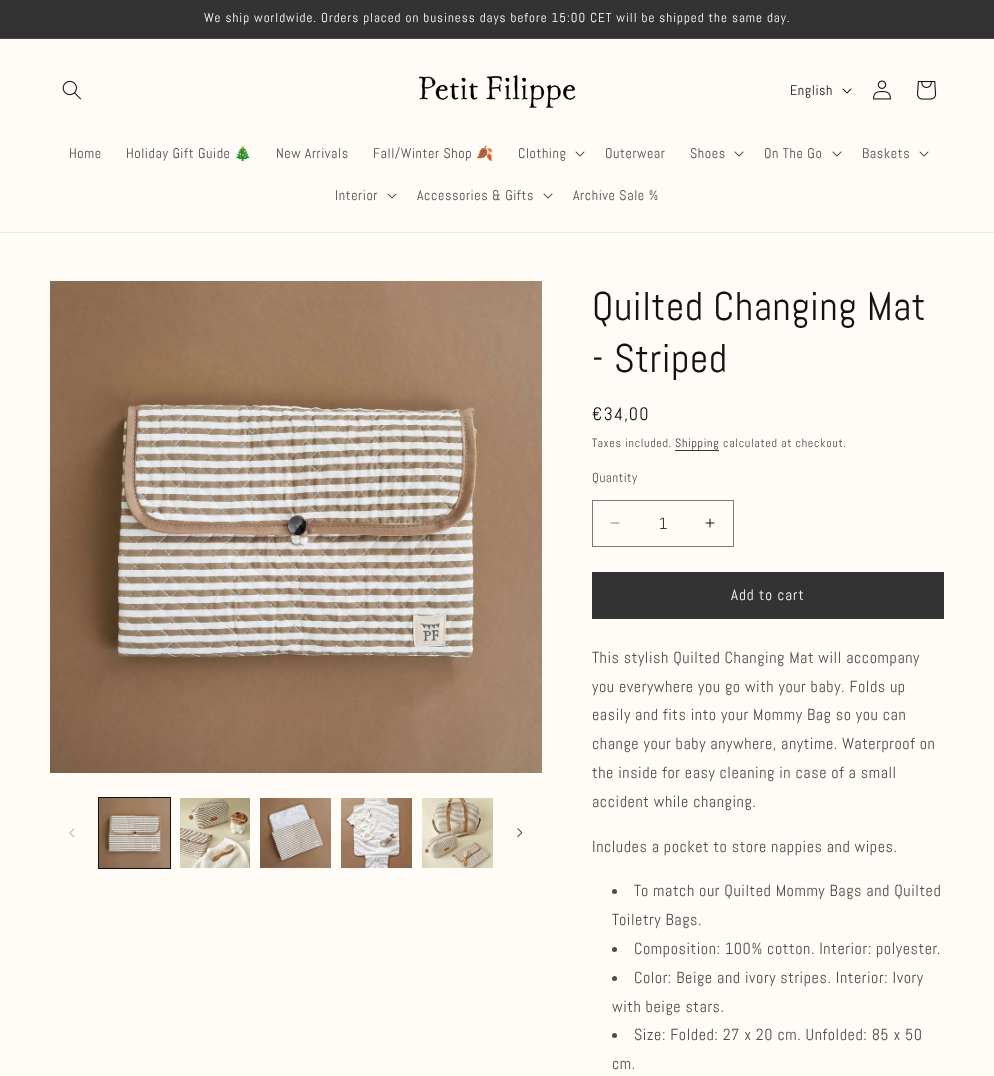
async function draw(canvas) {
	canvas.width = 994;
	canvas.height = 1076;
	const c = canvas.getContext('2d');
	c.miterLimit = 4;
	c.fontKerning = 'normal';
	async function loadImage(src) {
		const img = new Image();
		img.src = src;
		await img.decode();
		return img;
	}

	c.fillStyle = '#fffcf7';
	c.fillRect(0, 0, 994, 1076);
	c.fillStyle = '#333';
	c.fillRect(0, 0, 994, 38);
	c.fillStyle = '#434343';
	c.fillRect(0, 38, 994, 1);
	c.letterSpacing = '1px';
	c.font = '13px Abel';
	c.fillStyle = '#fff';
	c.fillText('We ship worldwide. Orders placed on business days before 15:00 CET will be shipped the same day.', 204, 22);
	c.fillStyle = '#ece9e5';
	c.fillRect(0, 232, 994, 1);
	c.drawImage(await loadImage('img1.png'), 62, 80, 19, 20);
	c.drawImage(await loadImage('img2.png'), 419, 75, 157, 33);
	c.letterSpacing = '0.6px';
	c.font = '14px Abel';
	c.fillStyle = '#121212';
	c.fillText('English', 790, 95);
	c.drawImage(await loadImage('img3.png'), 842, 88, 10, 6);
	c.drawImage(await loadImage('img4.png'), 873, 80, 18, 20);
	c.drawImage(await loadImage('img5.png'), 917, 81, 20, 19);
	c.fillStyle = '#4d4d4b';
	c.fillText('Home', 69, 158);
	c.fillText('Holiday Gift Guide', 126, 158);
	c.font = '14px Noto Color Emoji';
	c.fillText('🎄', 234, 158);
	c.font = '14px Abel';
	c.fillText('New Arrivals', 276, 158);
	c.fillText('Fall/Winter Shop', 373, 158);
	c.font = '14px Noto Color Emoji';
	c.fillText('🍂', 476, 158);
	c.font = '14px Abel';
	c.fillText('Clothing', 518, 158);
	c.drawImage(await loadImage('img6.png'), 575, 151, 10, 6);
	c.fillText('Outerwear', 605, 158);
	c.fillText('Shoes', 690, 158);
	c.drawImage(await loadImage('img6.png'), 734, 151, 10, 6);
	c.fillText('On The Go', 764, 158);
	c.drawImage(await loadImage('img6.png'), 832, 151, 10, 6);
	c.fillText('Baskets', 862, 158);
	c.drawImage(await loadImage('img6.png'), 919, 151, 10, 6);
	c.fillText('Interior', 335, 200);
	c.drawImage(await loadImage('img6.png'), 387, 193, 10, 6);
	c.fillText('Accessories & Gifts', 417, 200);
	c.drawImage(await loadImage('img6.png'), 543, 193, 10, 6);
	c.fillText('Archive Sale %', 573, 200);
	c.drawImage(await loadImage('img7.png'), 50, 281, 492, 492);
	c.drawImage(await loadImage('img8.png'), 69, 828, 6, 10);
	c.strokeStyle = '#121212';
	c.strokeRect(98.5, 797.5, 72, 71);
	c.drawImage(await loadImage('img9.png'), 99, 798, 71, 70);
	c.drawImage(await loadImage('img10.png'), 180, 798, 70, 70);
	c.drawImage(await loadImage('img11.png'), 260, 798, 71, 70);
	c.drawImage(await loadImage('img12.png'), 341, 798, 71, 70);
	c.drawImage(await loadImage('img13.png'), 422, 798, 71, 70);
	c.drawImage(await loadImage('img14.png'), 517, 828, 6, 9);
	c.font = '40px Abel';
	c.fillStyle = '#121212';
	c.fillText('Quilted Changing Mat', 592, 320);
	c.fillText('- Striped', 592, 372);
	c.letterSpacing = '1.25px';
	c.font = '18px Abel';
	c.fillText('€34,00', 592, 420);
	c.letterSpacing = '0.7px';
	c.font = '12px Abel';
	c.fillStyle = '#4d4d4b';
	c.fillText('Taxes included.', 592, 447);
	c.fillStyle = '#363534';
	c.fillText('Shipping', 675, 447);
	c.fillRect(675, 450, 44, 1);
	c.fillStyle = '#4d4d4b';
	c.fillText('calculated at checkout.', 723, 447);
	c.letterSpacing = '0.5px';
	c.font = '13px Abel';
	c.fillText('Quantity', 592, 482);
	c.drawImage(await loadImage('img15.png'), 610, 522, 10, 2);
	c.drawImage(await loadImage('img16.png'), 705, 518, 10, 10);
	c.strokeStyle = '#7d7b79';
	c.strokeRect(592.5, 500.5, 141, 46);
	c.letterSpacing = '0px';
	c.font = '16px Abel';
	c.fillStyle = '#363534';
	c.fillText('1', 659, 529);
	c.fillStyle = '#333';
	c.fillRect(592, 572, 352, 47);
	c.letterSpacing = '1px';
	c.font = '15px Abel';
	c.fillStyle = '#fff';
	c.fillText('Add to cart', 731, 600);
	c.letterSpacing = '0.6px';
	c.font = '16px Abel';
	c.fillStyle = '#4d4d4b';
	for (const [text, x, y] of [
		['This stylish Quilted Changing Mat will accompany', 592, 663],
		['you everywhere you go with your baby. Folds up', 592, 692],
		['easily and fits into your Mommy Bag so you can', 592, 720],
		['change your baby anywhere, anytime. Waterproof on', 592, 749],
		['the inside for easy cleaning in case of a small', 592, 778],
		['accident while changing.', 592, 807],
		['Includes a pocket to store nappies and wipes.', 592, 852],
	]) {
		c.fillText(text, x, y);
	}
	c.beginPath();
	c.arc(614.5, 891.5, 2.5, 0, 2 * Math.PI);
	c.fill();
	c.fillText('To match our Quilted Mommy Bags and Quilted', 634, 896);
	c.fillText('Toiletry Bags.', 612, 925);
	c.beginPath();
	c.arc(614.5, 949.5, 2.5, 0, 2 * Math.PI);
	c.fill();
	c.fillText('Composition: 100% cotton. Interior: polyester.', 634, 954);
	c.beginPath();
	c.arc(614.5, 978.5, 2.5, 0, 2 * Math.PI);
	c.fill();
	c.fillText('Color: Beige and ivory stripes. Interior: Ivory', 634, 983);
	c.fillText('with beige stars.', 612, 1012);
	c.beginPath();
	c.arc(614.5, 1035.5, 2.5, 0, 2 * Math.PI);
	c.fill();
	c.fillText('Size: Folded: 27 x 20 cm. Unfolded: 85 x 50', 634, 1040);
	c.fillText('cm.', 612, 1069);
}

draw(document.querySelector('canvas'));
